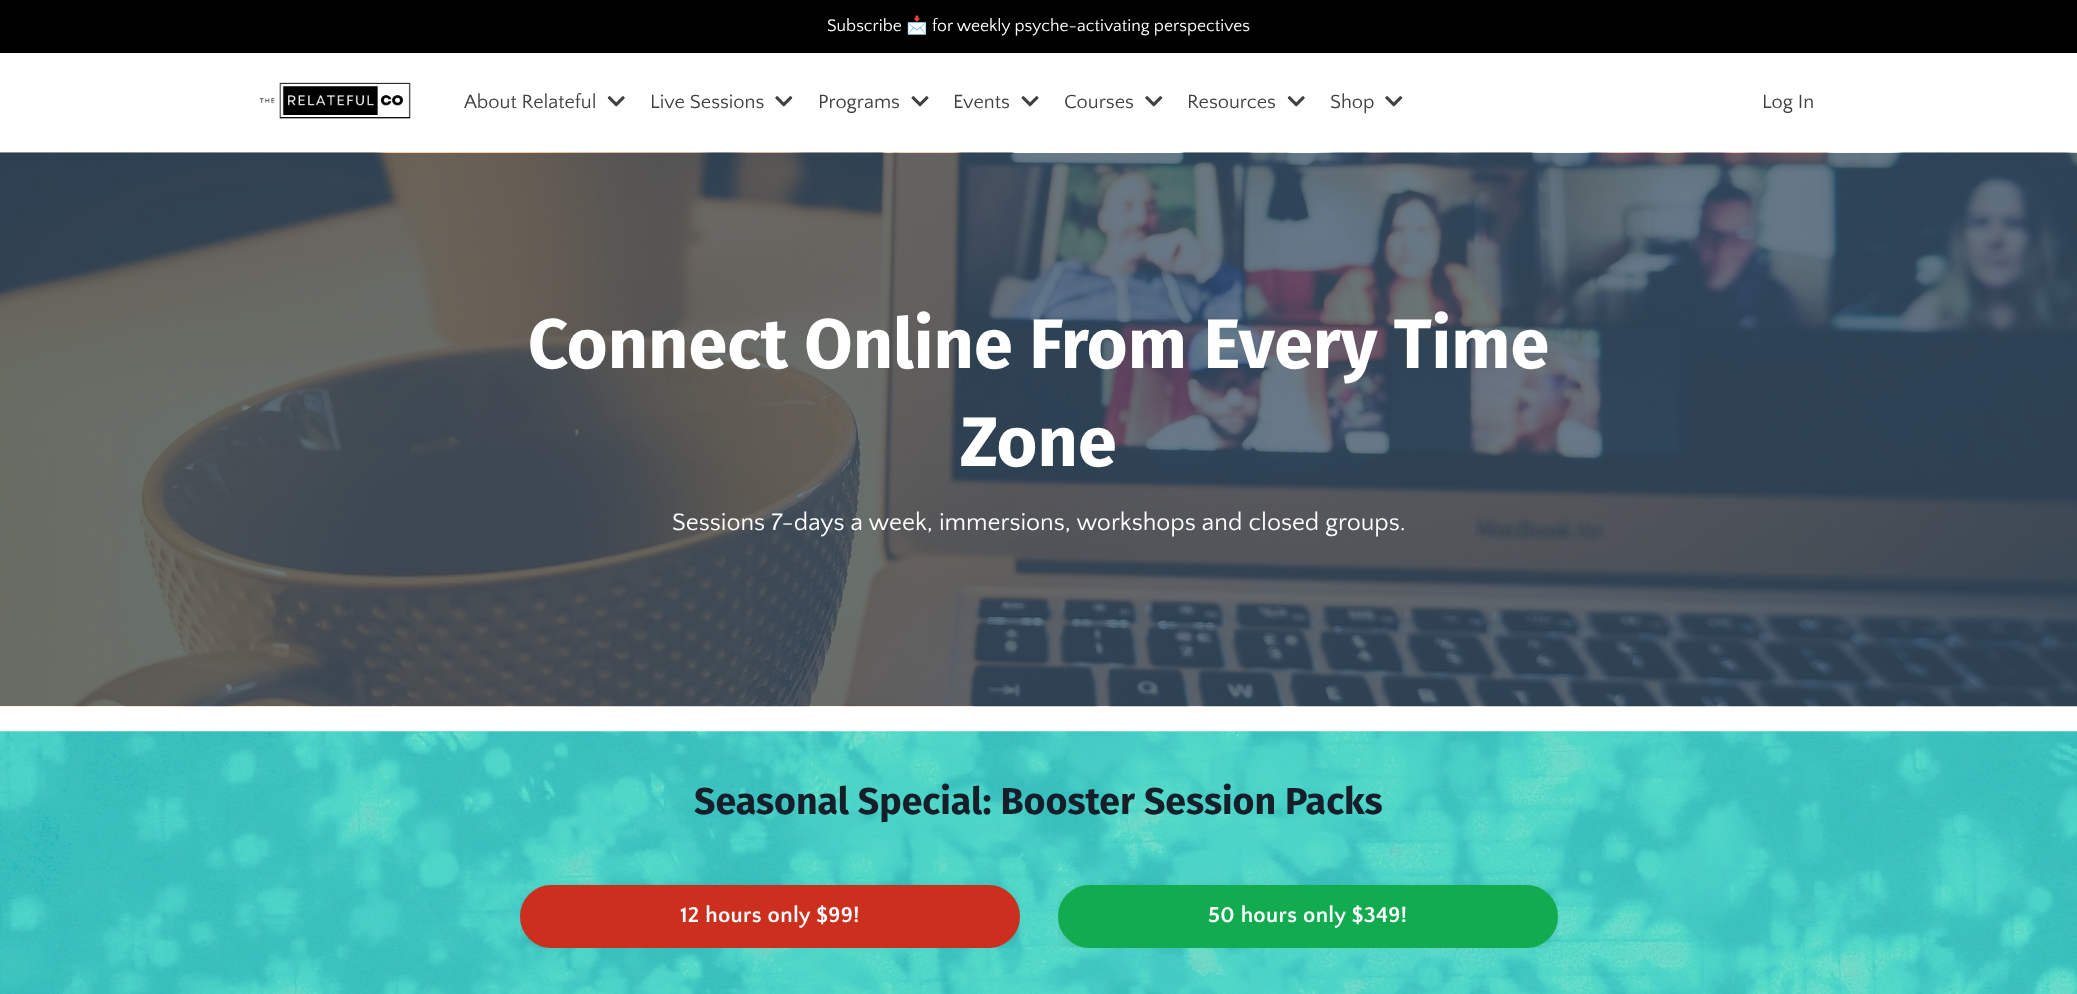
async function draw(canvas) {
	canvas.width = 2077;
	canvas.height = 994;
	const c = canvas.getContext('2d');
	c.miterLimit = 4;
	c.fontKerning = 'normal';
	async function loadImage(src) {
		const img = new Image();
		img.src = src;
		await img.decode();
		return img;
	}

	c.fillStyle = '#fff';
	c.fillRect(0, 0, 2077, 994);
	c.fillStyle = '#000';
	c.fillRect(0, 0, 2077, 53);
	c.font = '17.5px Quattrocento Sans';
	c.fillStyle = '#fff';
	c.fillText('Subscribe', 827, 31);
	c.font = '17.5px Noto Color Emoji';
	c.fillText('📩', 906, 31);
	c.font = '17.5px Quattrocento Sans';
	c.fillText('for weekly psyche-activating perspectives', 932, 31);
	c.drawImage(await loadImage('img1.png'), 259, 82, 152, 37);
	c.font = '20px Quattrocento Sans';
	c.fillStyle = '#404040';
	c.fillText('About Relateful', 464, 108);
	c.drawImage(await loadImage('img2.png'), 607, 96, 18, 11);
	c.fillText('Live Sessions', 650, 108);
	c.drawImage(await loadImage('img3.png'), 775, 96, 18, 11);
	c.fillText('Programs', 818, 108);
	c.drawImage(await loadImage('img4.png'), 911, 96, 18, 11);
	c.fillText('Events', 953, 108);
	c.drawImage(await loadImage('img4.png'), 1021, 96, 18, 11);
	c.fillText('Courses', 1064, 108);
	c.drawImage(await loadImage('img3.png'), 1145, 96, 18, 11);
	c.fillText('Resources', 1187, 108);
	c.drawImage(await loadImage('img2.png'), 1287, 96, 18, 11);
	c.fillText('Shop', 1330, 108);
	c.drawImage(await loadImage('img3.png'), 1385, 96, 18, 11);
	c.fillText('Log In', 1762, 108);
	c.drawImage(await loadImage('img5.png'), 0, 152, 2077, 555);
	c.font = 'bold 70px Fira Sans';
	c.fillStyle = '#fff';
	c.fillText('Connect Online From Every Time', 528, 368);
	c.fillText('Zone', 960, 466);
	c.font = '25px Quattrocento Sans';
	c.fillText('Sessions 7-days a week, immersions, workshops and closed groups.', 672, 530);
	c.drawImage(await loadImage('img6.png'), 0, 731, 2077, 263);
	c.font = 'bold 37.5px Fira Sans';
	c.fillStyle = '#161e2a';
	c.fillText('Seasonal Special: Booster Session Packs', 694, 814);
	c.save();
	c.beginPath();
	c.roundRect(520, 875, 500, 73, 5);
	c.clip();
	c.fillStyle = '#0000001a';
	c.filter = 'blur(6px)';
	c.beginPath();
	c.roundRect(520, 888, 500, 62, 31);
	c.fill();
	c.filter = 'none';
	c.restore();
	c.fillStyle = '#cc2f1e';
	c.beginPath();
	c.roundRect(521.5, 886.5, 497, 60, 30);
	c.fill();
	c.strokeStyle = '#cc2f1e';
	c.lineWidth = 3;
	c.stroke();
	c.letterSpacing = '0.3px';
	c.font = 'bold 22.5px Quattrocento Sans';
	c.fillStyle = '#fff';
	c.fillText('12 hours only $99!', 680, 922);
	c.save();
	c.beginPath();
	c.roundRect(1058, 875, 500, 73, 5);
	c.clip();
	c.fillStyle = '#0000001a';
	c.filter = 'blur(6px)';
	c.beginPath();
	c.roundRect(1058, 888, 500, 62, 31);
	c.fill();
	c.filter = 'none';
	c.restore();
	c.fillStyle = '#12ab50';
	c.beginPath();
	c.roundRect(1059.5, 886.5, 497, 60, 30);
	c.fill();
	c.strokeStyle = '#12ab50';
	c.stroke();
	c.fillStyle = '#fff';
	c.fillText('50 hours only $349!', 1208, 922);
}

draw(document.querySelector('canvas'));
